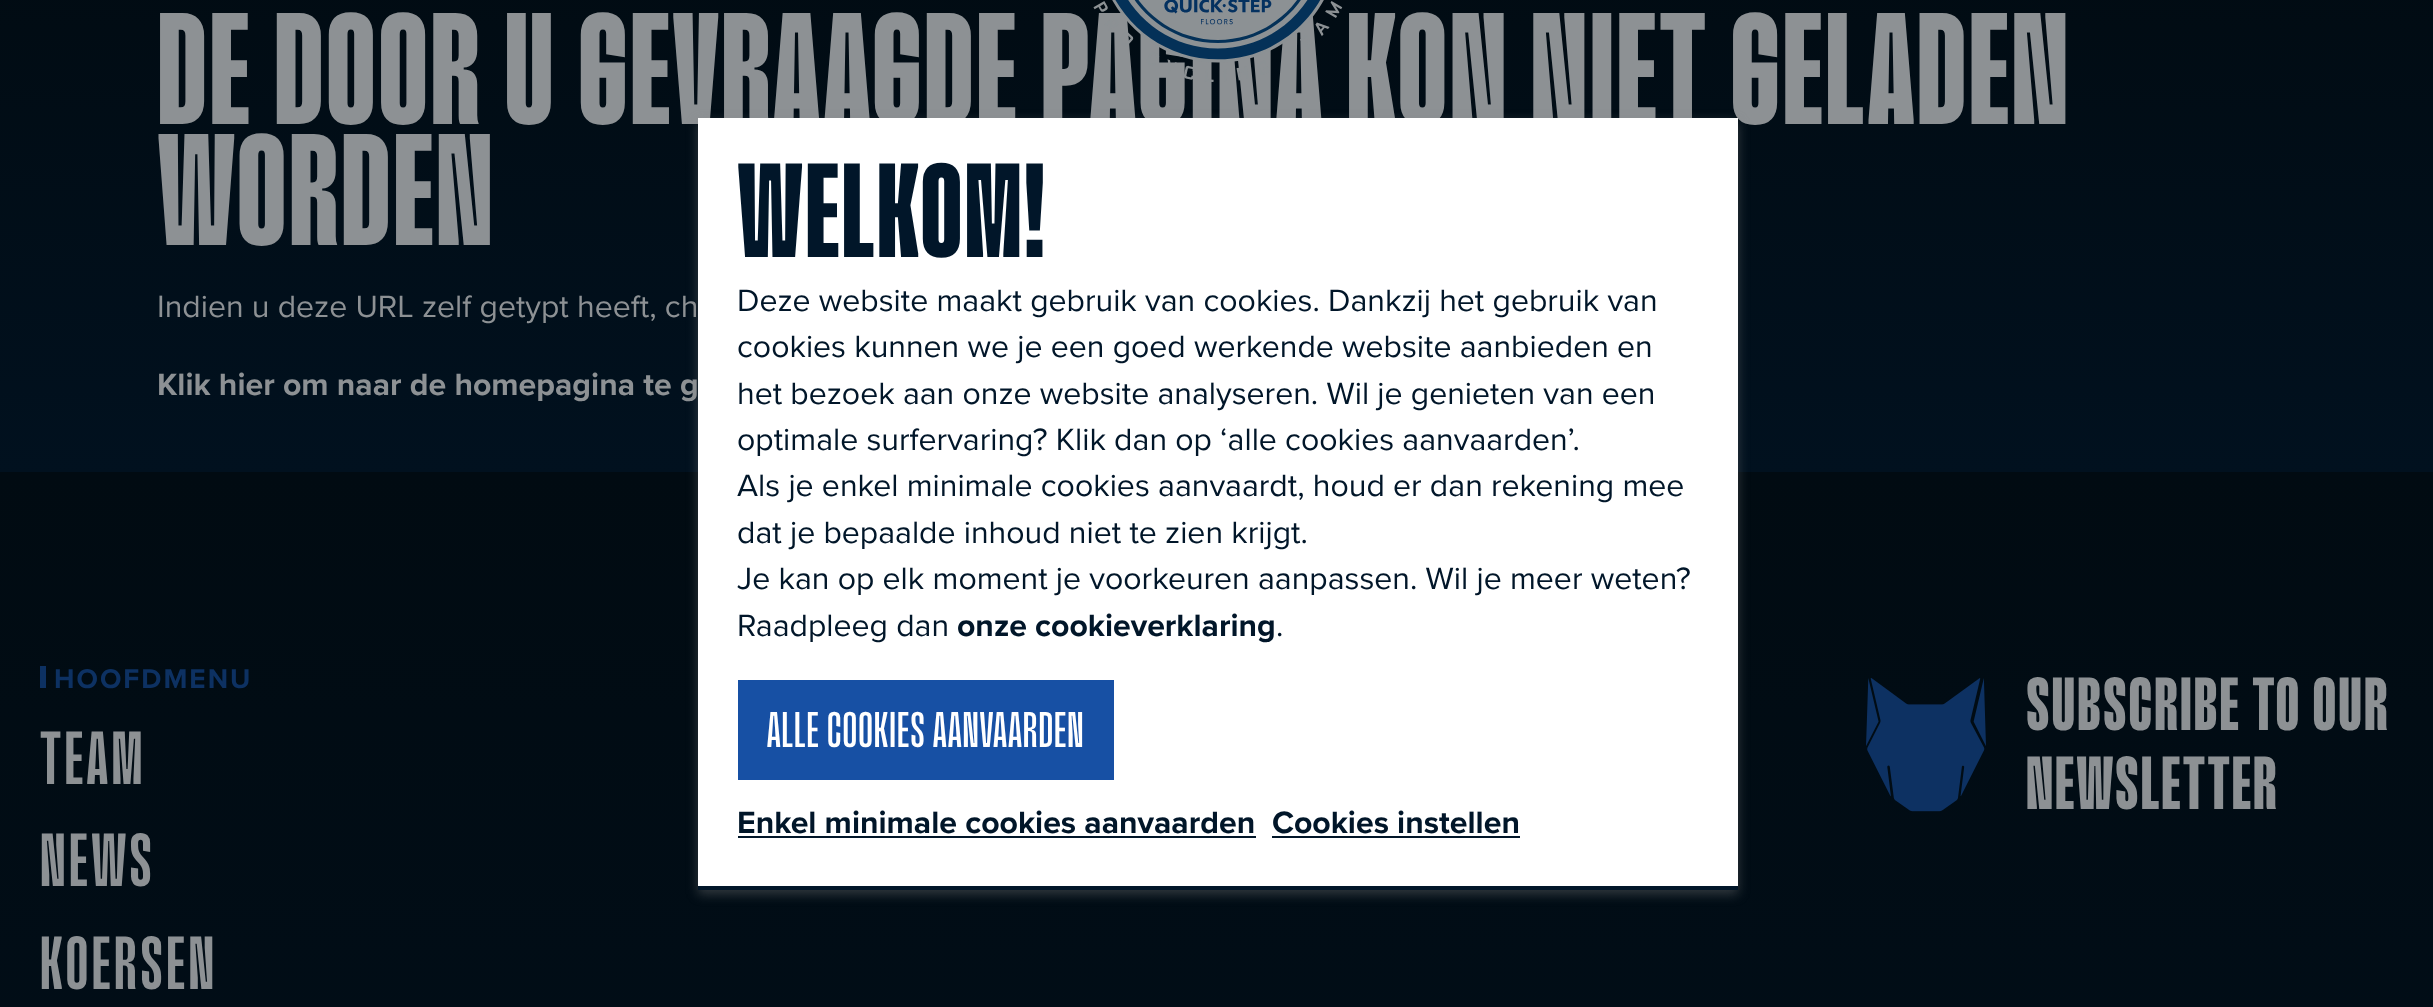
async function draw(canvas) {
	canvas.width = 2433;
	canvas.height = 1007;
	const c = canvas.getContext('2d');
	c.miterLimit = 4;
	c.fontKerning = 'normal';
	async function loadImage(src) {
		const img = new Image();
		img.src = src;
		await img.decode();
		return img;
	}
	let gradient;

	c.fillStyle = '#fff';
	c.fillRect(0, 0, 2433, 1007);
	gradient = c.createLinearGradient(1217, -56, 1217, 472);
	gradient.addColorStop(0, '#010b12');
	gradient.addColorStop(1, '#01111f');
	c.fillStyle = gradient;
	c.fillRect(0, 0, 2433, 472);
	c.letterSpacing = '2px';
	c.font = '800 152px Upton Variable';
	c.fillStyle = '#8d9194';
	c.fillText('DE DOOR U GEVRAAGDE PAGINA KON NIET GELADEN', 157, 124);
	c.drawImage(await loadImage('img1.png'), 1093, 0, 250, 82);
	c.fillText('WORDEN', 157, 245);
	c.letterSpacing = '0px';
	c.font = '32px Proxima Nova';
	c.fillText('Indien u deze URL zelf getypt heeft, ch', 157, 317);
	c.font = 'bold 32px Proxima Nova';
	c.fillText('Klik hier om naar de homepagina te g', 157, 395);
	gradient = c.createLinearGradient(1217, 472, 1217, 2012);
	gradient.addColorStop(0, '#010b12');
	gradient.addColorStop(1, '#01111f');
	c.fillStyle = gradient;
	c.fillRect(0, 472, 2433, 535);
	c.fillStyle = '#0d3162';
	c.fillRect(40, 666, 6, 22);
	c.letterSpacing = '2px';
	c.font = 'bold 28px Proxima Nova';
	c.fillText('HOOFDMENU', 54, 688);
	c.letterSpacing = '3.5px';
	c.font = 'bold 72px Upton Variable';
	c.fillStyle = '#8d9194';
	for (const [text, x, y] of [
		['TEAM', 40, 784],
		['NEWS', 40, 886],
		['KOERSEN', 40, 989],
	]) {
		c.fillText(text, x, y);
	}
	c.drawImage(await loadImage('img2.png'), 1866, 678, 120, 134);
	c.letterSpacing = '2px';
	c.font = '800 72px Upton Variable';
	c.fillText('SUBSCRIBE TO OUR', 2026, 730);
	c.fillText('NEWSLETTER', 2026, 809);
	c.fillStyle = '#80808066';
	c.filter = 'blur(6px)';
	c.beginPath();
	c.rect(698, 122, 1040, 772);
	c.fill();
	c.filter = 'none';
	c.fillStyle = '#fff';
	c.fillRect(698, 118, 1040, 768);
	c.fillStyle = '#011629';
	c.fillRect(698, 886, 1040, 4);
	c.font = '800 128px Upton Variable';
	c.fillText('WELKOM!', 737, 257);
	c.letterSpacing = '0px';
	c.font = '32px Proxima Nova';
	for (const [text, x, y] of [
		['Deze website maakt gebruik van cookies. Dankzij het gebruik van', 737, 311],
		['cookies kunnen we je een goed werkende website aanbieden en', 737, 357],
		['het bezoek aan onze website analyseren. Wil je genieten van een', 737, 404],
		['optimale surfervaring? Klik dan op ‘alle cookies aanvaarden’.', 737, 450],
		['Als je enkel minimale cookies aanvaardt, houd er dan rekening mee', 737, 496],
		['dat je bepaalde inhoud niet te zien krijgt.', 737, 543],
		['Je kan op elk moment je voorkeuren aanpassen. Wil je meer weten?', 737, 589],
		['Raadpleeg dan', 737, 636],
	]) {
		c.fillText(text, x, y);
	}
	c.font = 'bold 32px Proxima Nova';
	c.fillText('onze cookieverklaring', 957, 636);
	c.font = '32px Proxima Nova';
	c.fillText('.', 1276, 636);
	c.fillStyle = '#1750a4';
	c.fillRect(738, 680, 376, 100);
	c.letterSpacing = '1px';
	c.font = '600 48px Upton Variable';
	c.fillStyle = '#fff';
	c.fillText('ALLE COOKIES AANVAARDEN', 767, 747);
	c.letterSpacing = '0px';
	c.font = 'bold 32px Proxima Nova';
	c.fillStyle = '#011629';
	c.fillText('Enkel minimale cookies aanvaarden', 737, 833);
	c.fillRect(738, 836, 518, 2);
	c.fillText('Cookies instellen', 1272, 833);
	c.fillRect(1272, 836, 248, 2);
}

draw(document.querySelector('canvas'));
